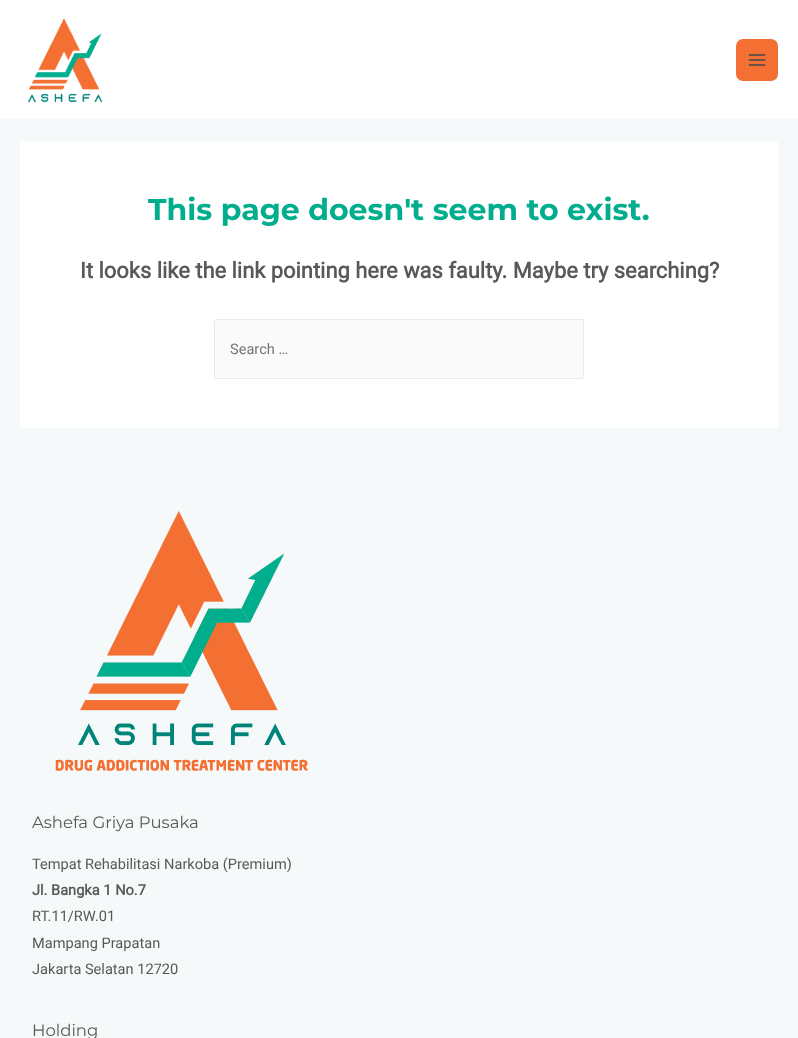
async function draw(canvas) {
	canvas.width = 798;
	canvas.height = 1038;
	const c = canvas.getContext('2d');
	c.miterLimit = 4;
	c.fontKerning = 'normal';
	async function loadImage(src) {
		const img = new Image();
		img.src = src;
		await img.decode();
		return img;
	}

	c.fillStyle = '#f6f9f9';
	c.fillRect(0, 0, 798, 1038);
	c.fillStyle = '#fff';
	c.fillRect(0, 0, 798, 119);
	c.drawImage(await loadImage('img1.png'), 27, 18, 76, 84);
	c.fillStyle = '#f36f32';
	c.beginPath();
	c.roundRect(736, 39, 42, 42, 7);
	c.fill();
	c.drawImage(await loadImage('img2.png'), 748, 54, 18, 12);
	c.fillStyle = '#fff';
	c.fillRect(20, 141, 758, 287);
	c.font = 'bold 30px Montserrat';
	c.fillStyle = '#00ae8e';
	c.fillText('This page doesn\'t seem to exist.', 148, 220);
	c.font = 'bold 21.9px Roboto';
	c.fillStyle = '#595959';
	c.fillText('It looks like the link pointing here was faulty. Maybe try searching?', 80, 278);
	c.fillStyle = '#fafafa';
	c.beginPath();
	c.roundRect(214.5, 319.5, 369, 59, 1.5);
	c.fill();
	c.strokeStyle = '#eaeaea';
	c.stroke();
	c.font = '14.6px Roboto';
	c.fillStyle = '#757575';
	c.fillText('Search …', 230, 354);
	c.drawImage(await loadImage('img3.png'), 55, 511, 253, 260);
	c.font = '16.5px Montserrat';
	c.fillStyle = '#595959';
	c.fillText('Ashefa Griya Pusaka', 32, 828);
	c.font = '14.6px Roboto';
	c.fillText('Tempat Rehabilitasi Narkoba (Premium)', 32, 869);
	c.font = 'bold 14.6px Roboto';
	c.fillText('Jl. Bangka 1 No.7', 32, 895);
	c.font = '14.6px Roboto';
	for (const [text, x, y] of [
		['RT.11/RW.01', 32, 921],
		['Mampang Prapatan', 32, 948],
		['Jakarta Selatan 12720', 32, 974],
	]) {
		c.fillText(text, x, y);
	}
	c.font = '16.5px Montserrat';
	c.fillText('Holding', 32, 1036);
}

draw(document.querySelector('canvas'));
